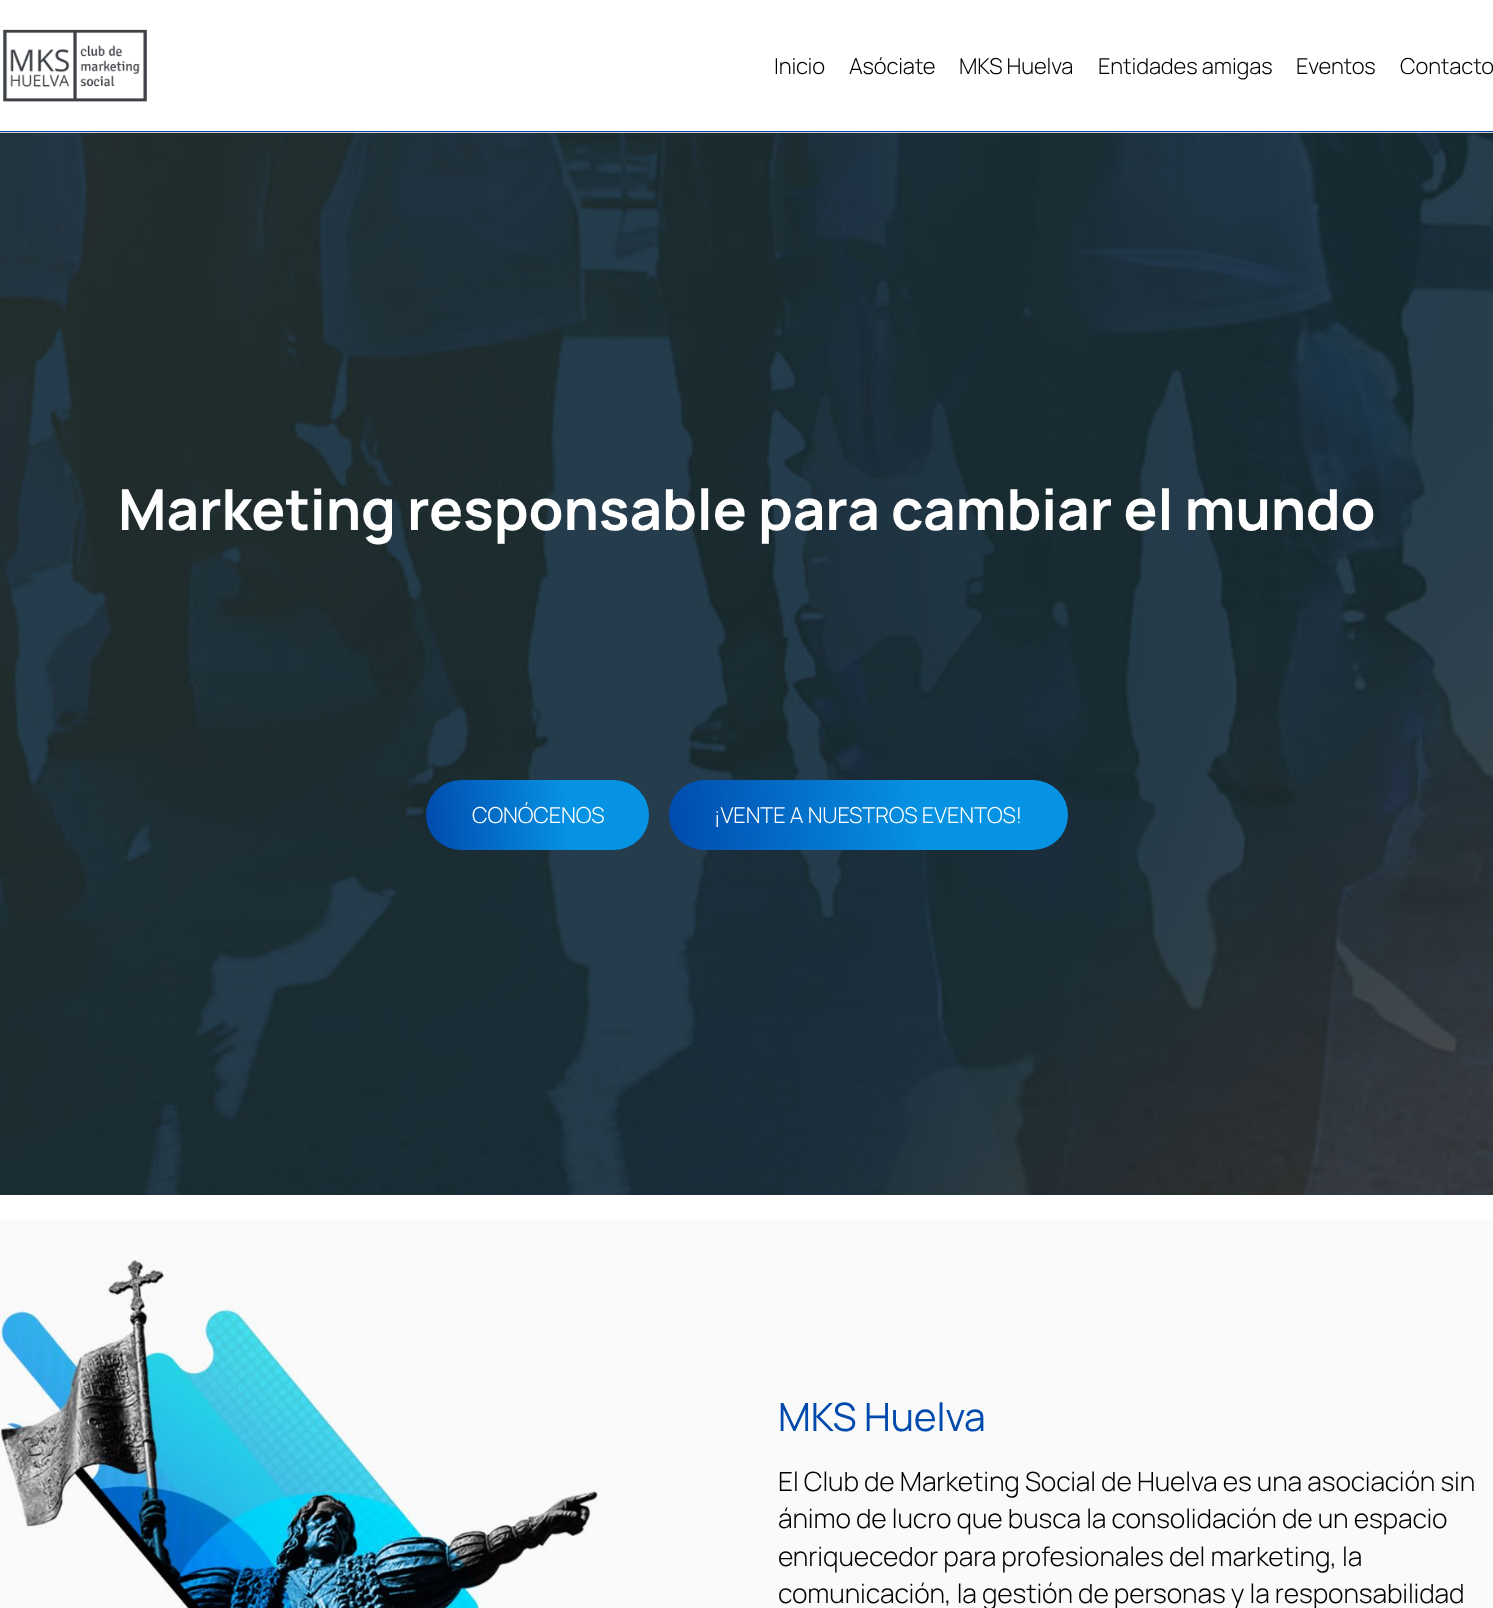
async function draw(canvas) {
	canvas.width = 1493;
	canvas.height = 1608;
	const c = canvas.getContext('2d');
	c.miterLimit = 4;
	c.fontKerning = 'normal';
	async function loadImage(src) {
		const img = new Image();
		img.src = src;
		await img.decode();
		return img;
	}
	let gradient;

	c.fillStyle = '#fff';
	c.fillRect(0, 0, 1493, 1608);
	c.fillStyle = '#004aad';
	c.fillRect(0, 131, 1493, 1);
	c.drawImage(await loadImage('img1.png'), 3, 29, 144, 73);
	c.letterSpacing = '-0.12px';
	c.font = '300 22px Manrope';
	c.fillStyle = '#000';
	for (const [text, x, y] of [
		['Inicio', 774, 74],
		['Asóciate', 849, 74],
		['MKS Huelva', 959, 74],
		['Entidades amigas', 1098, 74],
		['Eventos', 1296, 74],
		['Contacto', 1400, 74],
	]) {
		c.fillText(text, x, y);
	}
	c.drawImage(await loadImage('img2.png'), 0, 132, 1493, 1063);
	c.font = 'bold 56.75px Manrope';
	c.fillStyle = '#fff';
	c.fillText('Marketing responsable para cambiar el mundo', 118, 530);
	gradient = c.createLinearGradient(651, 803, 424, 827);
	gradient.addColorStop(0.36, '#0693e3');
	gradient.addColorStop(1, '#004aad');
	c.fillStyle = gradient;
	c.beginPath();
	c.roundRect(426, 780, 223, 70, 35);
	c.fill();
	c.font = '300 22px Manrope';
	c.fillStyle = '#fff';
	c.fillText('CONÓCENOS', 472, 823);
	gradient = c.createLinearGradient(1069, 794, 667, 836);
	gradient.addColorStop(0.36, '#0693e3');
	gradient.addColorStop(1, '#004aad');
	c.fillStyle = gradient;
	c.beginPath();
	c.roundRect(669, 780, 399, 70, 35);
	c.fill();
	c.fillStyle = '#fff';
	c.fillText('¡VENTE A NUESTROS EVENTOS!', 714, 823);
	c.fillStyle = '#fafafa';
	c.fillRect(0, 1220, 1493, 388);
	c.drawImage(await loadImage('img3.png'), 0, 1259, 598, 349);
	c.font = '39px Manrope';
	c.fillStyle = '#004aad';
	c.fillText('MKS Huelva', 778, 1431);
	c.font = '300 26.55px Manrope';
	c.fillStyle = '#000';
	for (const [text, x, y] of [
		['El Club de Marketing Social de Huelva es una asociación sin', 778, 1491],
		['ánimo de lucro que busca la consolidación de un espacio', 778, 1528],
		['enriquecedor para profesionales del marketing, la', 778, 1566],
		['comunicación, la gestión de personas y la responsabilidad', 778, 1603],
	]) {
		c.fillText(text, x, y);
	}
}

draw(document.querySelector('canvas'));
